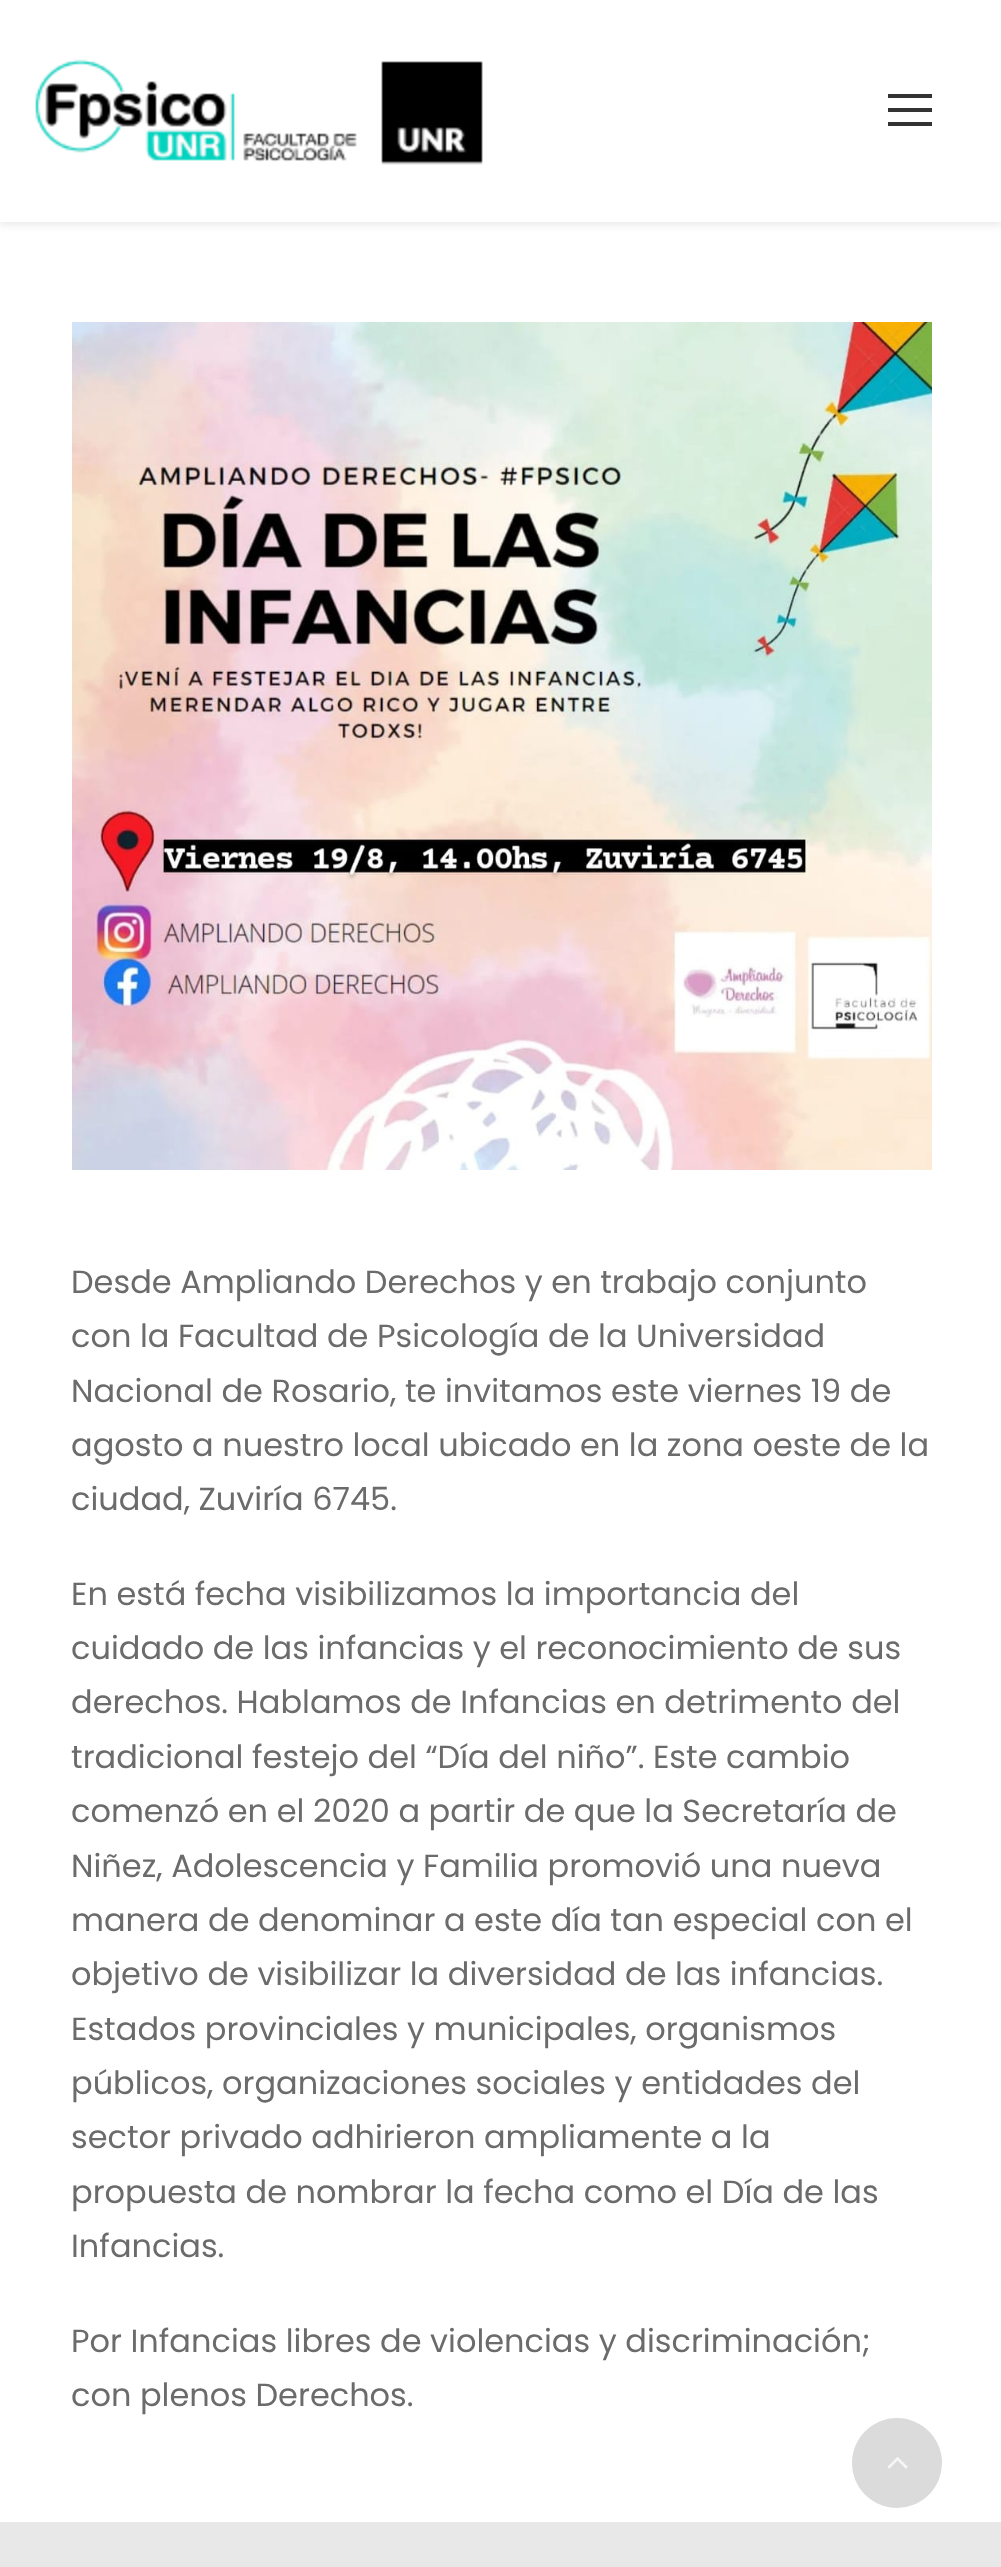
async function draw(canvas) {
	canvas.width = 1001;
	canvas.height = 2567;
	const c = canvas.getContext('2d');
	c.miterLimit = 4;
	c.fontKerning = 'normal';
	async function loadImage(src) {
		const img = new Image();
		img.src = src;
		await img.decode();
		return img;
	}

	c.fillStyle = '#fff';
	c.fillRect(0, 0, 1001, 2567);
	c.fillStyle = '#0000001a';
	c.filter = 'blur(4px)';
	c.beginPath();
	c.rect(0, 2, 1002, 222);
	c.fill();
	c.filter = 'none';
	c.fillStyle = '#fff';
	c.fillRect(0, 0, 1001, 222);
	c.drawImage(await loadImage('img1.png'), 35, 59, 448, 106);
	for (const [x, y, w, h, color] of [
		[888, 94, 44, 4, '#333'],
		[888, 108, 44, 4, '#333'],
		[888, 122, 44, 4, '#333'],
	]) {
		c.fillStyle = color;
		c.fillRect(x, y, w, h);
	}
	c.drawImage(await loadImage('img2.png'), 72, 322, 860, 848);
	c.font = '32px Poppins';
	c.fillStyle = '#6b6b6b';
	for (const [text, x, y] of [
		['Desde Ampliando Derechos y en trabajo conjunto', 71, 1293],
		['con la Facultad de Psicología de la Universidad', 71, 1347],
		['Nacional de Rosario, te invitamos este viernes 19 de', 71, 1402],
		['agosto a nuestro local ubicado en la zona oeste de la', 71, 1456],
		['ciudad, Zuviría 6745.', 71, 1510],
		['En está fecha visibilizamos la importancia del', 71, 1605],
		['cuidado de las infancias y el reconocimiento de sus', 71, 1659],
		['derechos. Hablamos de Infancias en detrimento del', 71, 1713],
		['tradicional festejo del “Día del niño”. Este cambio', 71, 1768],
		['comenzó en el 2020 a partir de que la Secretaría de', 71, 1822],
		['Niñez, Adolescencia y Familia promovió una nueva', 71, 1877],
		['manera de denominar a este día tan especial con el', 71, 1931],
		['objetivo de visibilizar la diversidad de las infancias.', 71, 1985],
		['Estados provinciales y municipales, organismos', 71, 2040],
		['públicos, organizaciones sociales y entidades del', 71, 2094],
		['sector privado adhirieron ampliamente a la', 71, 2148],
		['propuesta de nombrar la fecha como el Día de las', 71, 2203],
		['Infancias.', 71, 2257],
		['Por Infancias libres de violencias y discriminación;', 71, 2352],
		['con plenos Derechos.', 71, 2406],
	]) {
		c.fillText(text, x, y);
	}
	c.fillStyle = '#e8e8e8';
	c.fillRect(0, 2522, 1001, 45);
	c.fillStyle = '#dbdbdb';
	c.beginPath();
	c.arc(897, 2463, 45, 0, 2 * Math.PI);
	c.fill();
	c.drawImage(await loadImage('img3.png'), 887, 2457, 21, 12);
}

draw(document.querySelector('canvas'));
